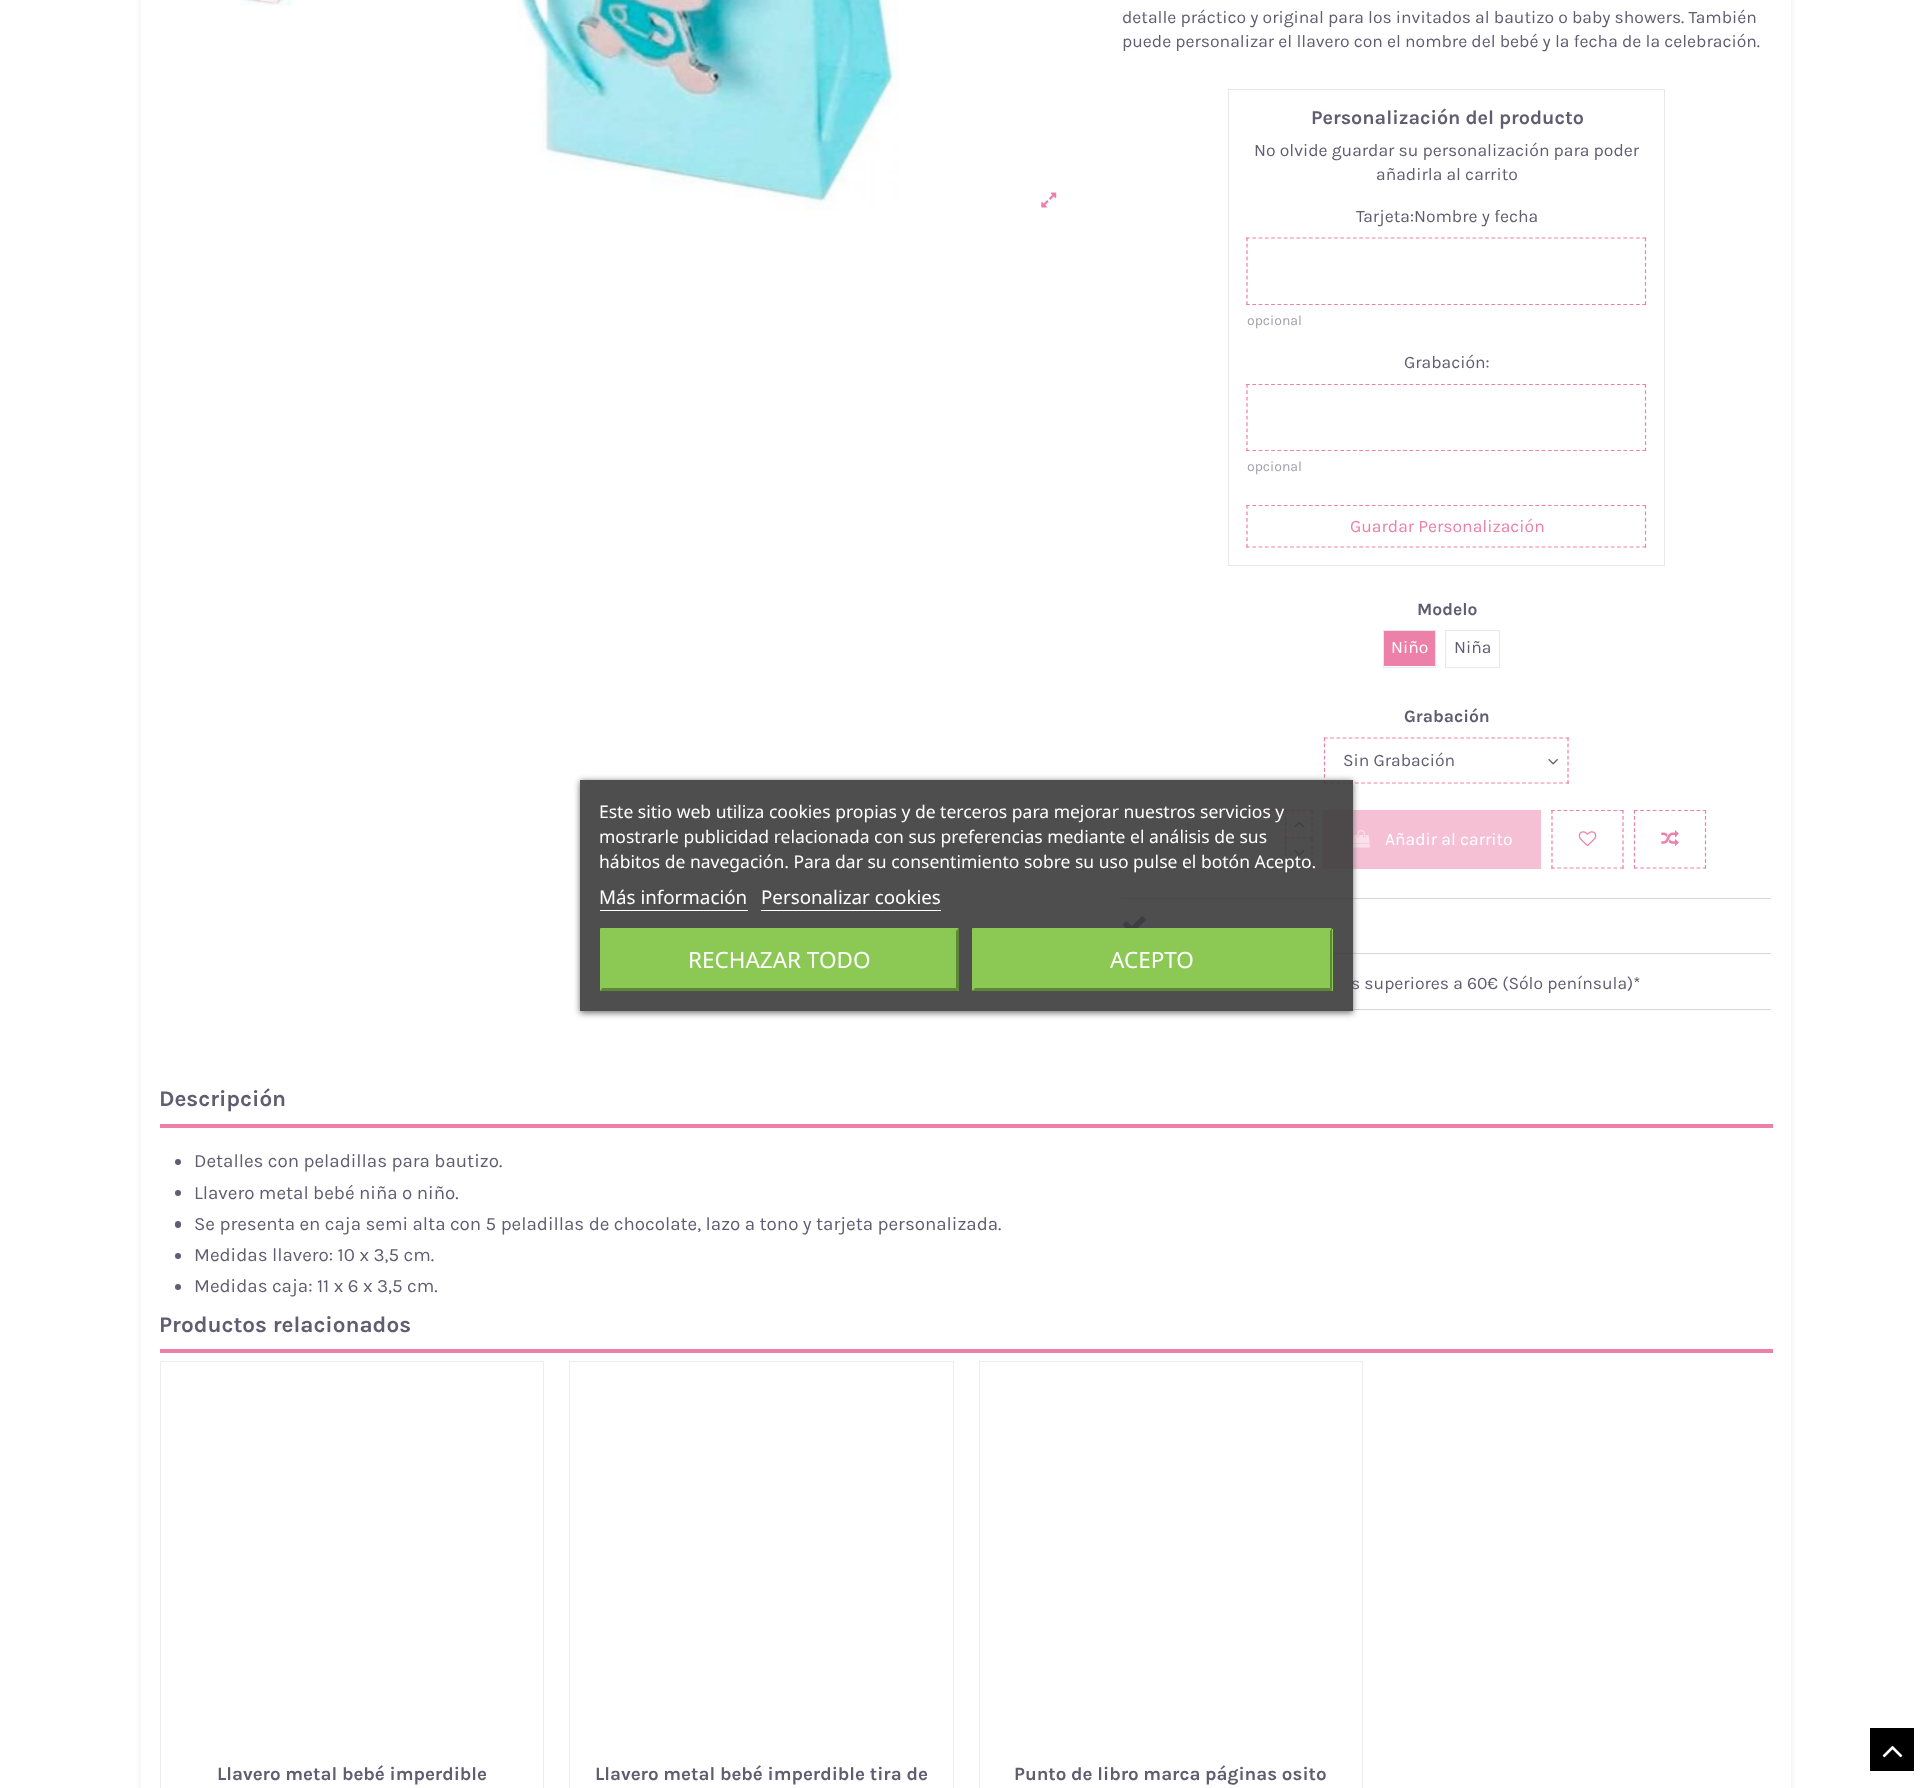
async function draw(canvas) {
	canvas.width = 1931;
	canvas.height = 1788;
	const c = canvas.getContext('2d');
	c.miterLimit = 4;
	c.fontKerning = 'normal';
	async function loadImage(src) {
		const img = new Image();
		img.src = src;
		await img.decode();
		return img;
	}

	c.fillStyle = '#fff';
	c.fillRect(0, 0, 1931, 1788);
	c.fillStyle = '#00000014';
	c.filter = 'blur(3px)';
	c.beginPath();
	c.rect(141, -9, 1650, 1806);
	c.fill();
	c.filter = 'none';
	c.fillStyle = '#fff';
	c.fillRect(141, 0, 1650, 1788);
	c.drawImage(await loadImage('img1.png'), 240, 0, 52, 6);
	c.drawImage(await loadImage('img2.png'), 517, 0, 382, 211);
	c.drawImage(await loadImage('img3.png'), 1041, 192, 16, 16);
	c.font = '17.5px Karla';
	c.fillStyle = '#605d70';
	c.fillText('detalle práctico y original para los invitados al bautizo o baby showers. También', 1122, 23);
	c.fillText('puede personalizar el llavero con el nombre del bebé y la fecha de la celebración.', 1122, 47);
	c.strokeStyle = '#e8e8e8';
	c.strokeRect(1228.5, 89.5, 436, 476);
	c.font = 'bold 19.75px Karla';
	c.fillText('Personalización del producto', 1311, 124);
	c.font = '17.5px Karla';
	for (const [text, x, y] of [
		['No olvide guardar su personalización para poder', 1254, 156],
		['añadirla al carrito', 1376, 180],
		['Tarjeta:Nombre y fecha', 1356, 222],
	]) {
		c.fillText(text, x, y);
	}
	c.beginPath();
	c.moveTo(1246, 238);
	c.lineTo(1646, 238);
	c.strokeStyle = '#ed80a8';
	c.lineWidth = 1.2;
	c.setLineDash([3.75, 2.54]);
	c.stroke();
	c.beginPath();
	c.moveTo(1645.5, 237.5);
	c.lineTo(1645.5, 305);
	c.setLineDash([3.75, 2.62]);
	c.stroke();
	c.beginPath();
	c.moveTo(1246, 304.5);
	c.lineTo(1646, 304.5);
	c.setLineDash([3.75, 2.54]);
	c.stroke();
	c.beginPath();
	c.moveTo(1247, 237.5);
	c.lineTo(1247, 305);
	c.setLineDash([3.75, 2.62]);
	c.stroke();
	c.font = '14px Karla';
	c.fillStyle = '#a09ea9';
	c.fillText('opcional', 1247, 325);
	c.font = '17.5px Karla';
	c.fillStyle = '#605d70';
	c.fillText('Grabación:', 1404, 368);
	c.beginPath();
	c.moveTo(1246, 384.5);
	c.lineTo(1646, 384.5);
	c.setLineDash([3.75, 2.54]);
	c.stroke();
	c.beginPath();
	c.moveTo(1645.5, 384);
	c.lineTo(1645.5, 451);
	c.setLineDash([3.75, 2.62]);
	c.stroke();
	c.beginPath();
	c.moveTo(1246, 450.5);
	c.lineTo(1646, 450.5);
	c.setLineDash([3.75, 2.54]);
	c.stroke();
	c.beginPath();
	c.moveTo(1247, 384);
	c.lineTo(1247, 451);
	c.setLineDash([3.75, 2.62]);
	c.stroke();
	c.font = '14px Karla';
	c.fillStyle = '#a09ea9';
	c.fillText('opcional', 1247, 471);
	c.beginPath();
	c.moveTo(1246, 505.5);
	c.lineTo(1646, 505.5);
	c.setLineDash([3.75, 2.54]);
	c.stroke();
	c.beginPath();
	c.moveTo(1645.5, 505);
	c.lineTo(1645.5, 547.5);
	c.setLineDash([3.75, 2.71]);
	c.stroke();
	c.beginPath();
	c.moveTo(1246, 547);
	c.lineTo(1646, 547);
	c.setLineDash([3.75, 2.54]);
	c.stroke();
	c.beginPath();
	c.moveTo(1247, 505);
	c.lineTo(1247, 547.5);
	c.setLineDash([3.75, 2.71]);
	c.stroke();
	c.font = '17.5px Karla';
	c.fillStyle = '#ed80a8';
	c.fillText('Guardar Personalización', 1350, 532);
	c.font = 'bold 17.5px Karla';
	c.fillStyle = '#605d70';
	c.fillText('Modelo', 1417, 615);
	c.fillStyle = '#ed80a8';
	c.fillRect(1384, 631, 51, 35);
	c.strokeStyle = '#e8e8e8';
	c.lineWidth = 1;
	c.setLineDash([]);
	c.strokeRect(1383.5, 630.5, 52, 37);
	c.font = '17.5px Karla';
	c.fillStyle = '#fff';
	c.fillText('Niño', 1391, 653);
	c.strokeRect(1445.5, 630.5, 54, 37);
	c.fillStyle = '#605d70';
	c.fillText('Niña', 1454, 653);
	c.font = 'bold 17.5px Karla';
	c.fillText('Grabación', 1404, 722);
	c.beginPath();
	c.moveTo(1324, 738);
	c.lineTo(1569, 738);
	c.strokeStyle = '#ed80a8';
	c.lineWidth = 1.2;
	c.setLineDash([3.75, 2.44]);
	c.stroke();
	c.beginPath();
	c.moveTo(1568, 737.5);
	c.lineTo(1568, 784);
	c.setLineDash([3.75, 2.33]);
	c.stroke();
	c.beginPath();
	c.moveTo(1324, 783);
	c.lineTo(1569, 783);
	c.setLineDash([3.75, 2.44]);
	c.stroke();
	c.beginPath();
	c.moveTo(1324.5, 737.5);
	c.lineTo(1324.5, 784);
	c.setLineDash([3.75, 2.33]);
	c.stroke();
	c.font = '17.5px Karla';
	c.fillText('Sin Grabación', 1343, 766);
	c.drawImage(await loadImage('img4.png'), 1548, 758, 10, 7);
	c.beginPath();
	c.moveTo(1285, 810.5);
	c.lineTo(1312.5, 810.5);
	c.setLineDash([3.75, 2.19]);
	c.stroke();
	c.beginPath();
	c.moveTo(1312, 810);
	c.lineTo(1312, 839);
	c.setLineDash([3.75, 2.5]);
	c.stroke();
	c.beginPath();
	c.moveTo(1285, 838);
	c.lineTo(1312.5, 838);
	c.setLineDash([3.75, 2.19]);
	c.stroke();
	c.beginPath();
	c.moveTo(1285.5, 810);
	c.lineTo(1285.5, 839);
	c.setLineDash([3.75, 2.5]);
	c.stroke();
	c.beginPath();
	c.moveTo(1312, 839);
	c.lineTo(1312, 869);
	c.setLineDash([3.75, 2.81]);
	c.stroke();
	c.beginPath();
	c.moveTo(1285, 868);
	c.lineTo(1312.5, 868);
	c.setLineDash([3.75, 2.19]);
	c.stroke();
	c.beginPath();
	c.moveTo(1285.5, 839);
	c.lineTo(1285.5, 869);
	c.setLineDash([3.75, 2.81]);
	c.stroke();
	c.fillStyle = '#fff';
	c.fillRect(1284, 811, 1, 57);
	c.beginPath();
	c.moveTo(1187.5, 810.5);
	c.lineTo(1286, 810.5);
	c.setLineDash([3.75, 2.59]);
	c.stroke();
	c.beginPath();
	c.moveTo(1285.5, 810);
	c.lineTo(1285.5, 869);
	c.setLineDash([3.75, 2.36]);
	c.stroke();
	c.beginPath();
	c.moveTo(1187.5, 868);
	c.lineTo(1286, 868);
	c.setLineDash([3.75, 2.59]);
	c.stroke();
	c.beginPath();
	c.moveTo(1188, 810);
	c.lineTo(1188, 869);
	c.setLineDash([3.75, 2.36]);
	c.stroke();
	c.drawImage(await loadImage('img5.png'), 1294, 821, 11, 7);
	c.drawImage(await loadImage('img6.png'), 1294, 850, 11, 6);
	c.fillStyle = '#f6c0d4';
	c.fillRect(1323, 810, 218, 59);
	c.beginPath();
	c.moveTo(1322.5, 810.5);
	c.lineTo(1541, 810.5);
	c.strokeStyle = '#f6c0d4';
	c.setLineDash([3.75, 2.58]);
	c.stroke();
	c.beginPath();
	c.moveTo(1540.5, 810);
	c.lineTo(1540.5, 869);
	c.setLineDash([3.75, 2.36]);
	c.stroke();
	c.beginPath();
	c.moveTo(1322.5, 868);
	c.lineTo(1541, 868);
	c.setLineDash([3.75, 2.58]);
	c.stroke();
	c.beginPath();
	c.moveTo(1323, 810);
	c.lineTo(1323, 869);
	c.setLineDash([3.75, 2.36]);
	c.stroke();
	c.drawImage(await loadImage('img7.png'), 1352, 830, 18, 18);
	c.fillStyle = '#fff';
	c.fillText('Añadir al carrito', 1385, 845);
	c.beginPath();
	c.moveTo(1551, 810.5);
	c.lineTo(1624, 810.5);
	c.strokeStyle = '#ed80a8';
	c.setLineDash([3.75, 2.5]);
	c.stroke();
	c.beginPath();
	c.moveTo(1623, 810);
	c.lineTo(1623, 869);
	c.setLineDash([3.75, 2.36]);
	c.stroke();
	c.beginPath();
	c.moveTo(1551, 868);
	c.lineTo(1624, 868);
	c.setLineDash([3.75, 2.5]);
	c.stroke();
	c.beginPath();
	c.moveTo(1552, 810);
	c.lineTo(1552, 869);
	c.setLineDash([3.75, 2.36]);
	c.stroke();
	c.drawImage(await loadImage('img8.png'), 1578, 831, 19, 16);
	c.beginPath();
	c.moveTo(1634, 810.5);
	c.lineTo(1706, 810.5);
	c.setLineDash([3.75, 2.5]);
	c.stroke();
	c.beginPath();
	c.moveTo(1705.5, 810);
	c.lineTo(1705.5, 869);
	c.setLineDash([3.75, 2.36]);
	c.stroke();
	c.beginPath();
	c.moveTo(1634, 868);
	c.lineTo(1706, 868);
	c.setLineDash([3.75, 2.5]);
	c.stroke();
	c.beginPath();
	c.moveTo(1634.5, 810);
	c.lineTo(1634.5, 869);
	c.setLineDash([3.75, 2.36]);
	c.stroke();
	c.drawImage(await loadImage('img9.png'), 1661, 830, 18, 16);
	c.fillStyle = '#d6d4d4';
	c.fillRect(1121, 898, 650, 1);
	c.fillRect(1333, 953, 438, 1);
	c.drawImage(await loadImage('img10.png'), 1123, 916, 23, 12);
	c.fillRect(1121, 1009, 650, 1);
	c.fillStyle = '#605d70';
	c.fillText('s superiores a 60€ (Sólo península)*', 1351, 989);
	c.fillStyle = '#ed80a8';
	c.fillRect(160, 1124, 1613, 4);
	c.font = 'bold 22.5px Karla';
	c.fillStyle = '#605d70';
	c.fillText('Descripción', 159, 1106);
	c.beginPath();
	c.arc(178, 1162, 3, 0, 2 * Math.PI);
	c.fill();
	c.font = '18.75px Karla';
	c.fillText('Detalles con peladillas para bautizo.', 194, 1167);
	c.beginPath();
	c.arc(178, 1193, 3, 0, 2 * Math.PI);
	c.fill();
	c.fillText('Llavero metal bebé niña o niño.', 194, 1199);
	c.beginPath();
	c.roundRect(175, 1221, 6, 7, 3);
	c.fill();
	c.fillText('Se presenta en caja semi alta con 5 peladillas de chocolate, lazo a tono y tarjeta personalizada.', 194, 1230);
	c.beginPath();
	c.arc(178, 1256, 3, 0, 2 * Math.PI);
	c.fill();
	c.fillText('Medidas llavero: 10 x 3,5 cm.', 194, 1261);
	c.beginPath();
	c.arc(178, 1287, 3, 0, 2 * Math.PI);
	c.fill();
	c.fillText('Medidas caja: 11 x 6 x 3,5 cm.', 194, 1292);
	c.fillStyle = '#ed80a8';
	c.fillRect(160, 1349, 1613, 4);
	c.font = 'bold 22.5px Karla';
	c.fillStyle = '#605d70';
	c.fillText('Productos relacionados', 159, 1332);
	c.strokeStyle = '#ededed';
	c.lineWidth = 1;
	c.setLineDash([]);
	c.strokeRect(160.5, 1361.5, 383, 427);
	c.font = 'bold 18.75px Karla';
	c.fillText('Llavero metal bebé imperdible', 217, 1780);
	c.strokeRect(569.5, 1361.5, 384, 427);
	c.fillText('Llavero metal bebé imperdible tira de', 595, 1780);
	c.strokeRect(979.5, 1361.5, 383, 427);
	c.fillText('Punto de libro marca páginas osito', 1014, 1780);
	c.save();
	c.beginPath();
	c.moveTo(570, 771);
	c.lineTo(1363, 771);
	c.lineTo(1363, 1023);
	c.lineTo(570, 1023);
	c.closePath();
	c.moveTo(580, 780);
	c.lineTo(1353, 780);
	c.lineTo(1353, 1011);
	c.lineTo(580, 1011);
	c.closePath();
	c.clip('evenodd');
	c.fillStyle = '#707070';
	c.filter = 'blur(3px)';
	c.beginPath();
	c.rect(580, 781, 773, 232);
	c.fill();
	c.filter = 'none';
	c.restore();
	c.fillStyle = '#3b3b3be6';
	c.fillRect(580, 780, 773, 231);
	c.font = '17.5px Noto Sans';
	c.fillStyle = '#fff';
	for (const [text, x, y] of [
		['Este sitio web utiliza cookies propias y de terceros para mejorar nuestros servicios y', 599, 818],
		['mostrarle publicidad relacionada con sus preferencias mediante el análisis de sus', 599, 843],
		['hábitos de navegación. Para dar su consentimiento sobre su uso pulse el botón Acepto.', 599, 868],
	]) {
		c.fillText(text, x, y);
	}
	c.font = '18.75px Noto Sans';
	c.fillText('Más información', 599, 904);
	c.fillRect(600, 910, 148, 1);
	c.fillText('Personalizar cookies', 761, 904);
	c.fillRect(761, 910, 180, 1);
	c.fillStyle = '#8bc954';
	c.fillRect(600, 929, 359, 62);
	c.beginPath();
	c.moveTo(600, 928);
	c.lineTo(959, 928);
	c.lineTo(956, 931);
	c.lineTo(602, 931);
	c.closePath();
	c.fill();
	c.fillStyle = '#5d8638';
	c.beginPath();
	c.moveTo(959, 928);
	c.lineTo(959, 991);
	c.lineTo(956, 988);
	c.lineTo(956, 931);
	c.closePath();
	c.fill();
	c.beginPath();
	c.moveTo(959, 991);
	c.lineTo(600, 991);
	c.lineTo(602, 988);
	c.lineTo(956, 988);
	c.closePath();
	c.fill();
	c.fillStyle = '#8bc954';
	c.beginPath();
	c.moveTo(600, 991);
	c.lineTo(600, 928);
	c.lineTo(602, 931);
	c.lineTo(602, 988);
	c.closePath();
	c.fill();
	c.font = '22.5px Noto Sans';
	c.fillStyle = '#fff';
	c.fillText('RECHAZAR TODO', 688, 968);
	c.fillStyle = '#8bc954';
	c.fillRect(973, 929, 360, 62);
	c.beginPath();
	c.moveTo(972, 928);
	c.lineTo(1332, 928);
	c.lineTo(1330, 931);
	c.lineTo(975, 931);
	c.closePath();
	c.fill();
	c.fillStyle = '#5d8638';
	c.beginPath();
	c.moveTo(1332, 928);
	c.lineTo(1332, 991);
	c.lineTo(1330, 988);
	c.lineTo(1330, 931);
	c.closePath();
	c.fill();
	c.beginPath();
	c.moveTo(1332, 991);
	c.lineTo(972, 991);
	c.lineTo(975, 988);
	c.lineTo(1330, 988);
	c.closePath();
	c.fill();
	c.fillStyle = '#8bc954';
	c.beginPath();
	c.moveTo(972, 991);
	c.lineTo(972, 928);
	c.lineTo(975, 931);
	c.lineTo(975, 988);
	c.closePath();
	c.fill();
	c.fillStyle = '#fff';
	c.fillText('ACEPTO', 1110, 968);
	c.fillStyle = '#000';
	c.fillRect(1870, 1728, 44, 43);
	c.drawImage(await loadImage('img11.png'), 1882, 1745, 21, 13);
}

draw(document.querySelector('canvas'));
